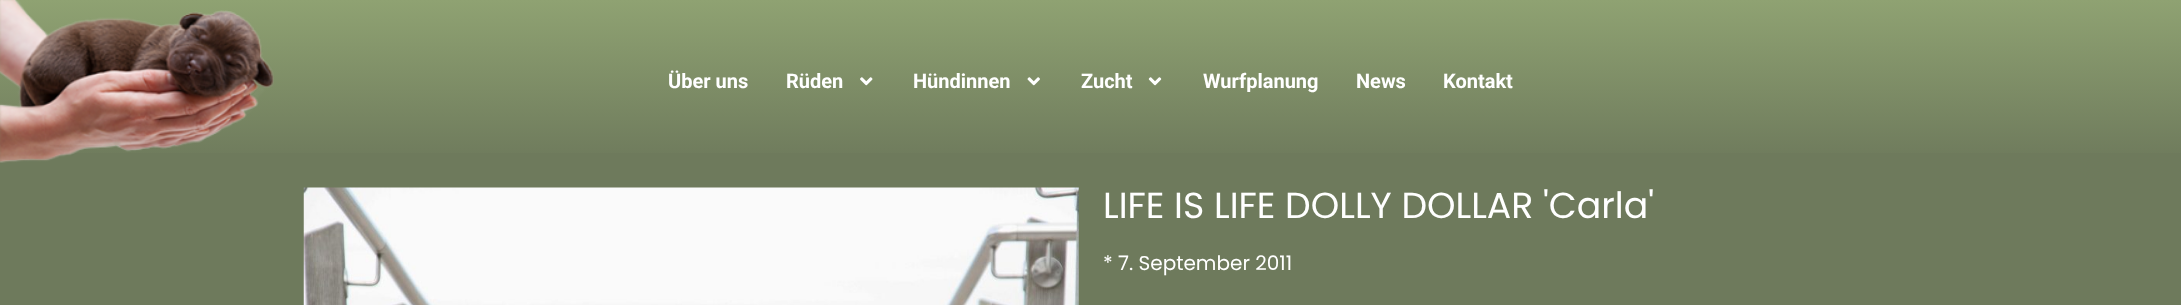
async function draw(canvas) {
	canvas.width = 2181;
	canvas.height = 305;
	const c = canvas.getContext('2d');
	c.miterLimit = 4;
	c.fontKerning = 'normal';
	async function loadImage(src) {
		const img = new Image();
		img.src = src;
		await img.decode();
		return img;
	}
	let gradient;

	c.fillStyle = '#6e7a5c';
	c.fillRect(0, 0, 2181, 305);
	gradient = c.createLinearGradient(1091, 0, 1091, 163);
	gradient.addColorStop(0, '#8fa272');
	gradient.addColorStop(1, '#6e7a5c');
	c.fillStyle = gradient;
	c.fillRect(0, 0, 2181, 153);
	c.drawImage(await loadImage('img1.png'), 0, 0, 274, 163);
	c.font = 'bold 20px Roboto';
	c.fillStyle = '#fff';
	c.fillText('Über uns', 668, 88);
	c.fillText('Rüden', 786, 88);
	c.drawImage(await loadImage('img2.png'), 860, 77, 13, 9);
	c.fillText('Hündinnen', 913, 88);
	c.drawImage(await loadImage('img3.png'), 1027, 77, 13, 9);
	c.fillText('Zucht', 1081, 88);
	c.drawImage(await loadImage('img4.png'), 1148, 77, 14, 9);
	for (const [text, x, y] of [
		['Wurfplanung', 1203, 88],
		['News', 1356, 88],
		['Kontakt', 1443, 88],
	]) {
		c.fillText(text, x, y);
	}
	c.drawImage(await loadImage('img5.png'), 303, 187, 776, 118);
	c.font = '36.25px Poppins';
	c.fillText('LIFE IS LIFE DOLLY DOLLAR \'Carla\'', 1103, 218);
	c.font = '20px Poppins';
	c.fillText('* 7. September 2011', 1103, 270);
}

draw(document.querySelector('canvas'));
